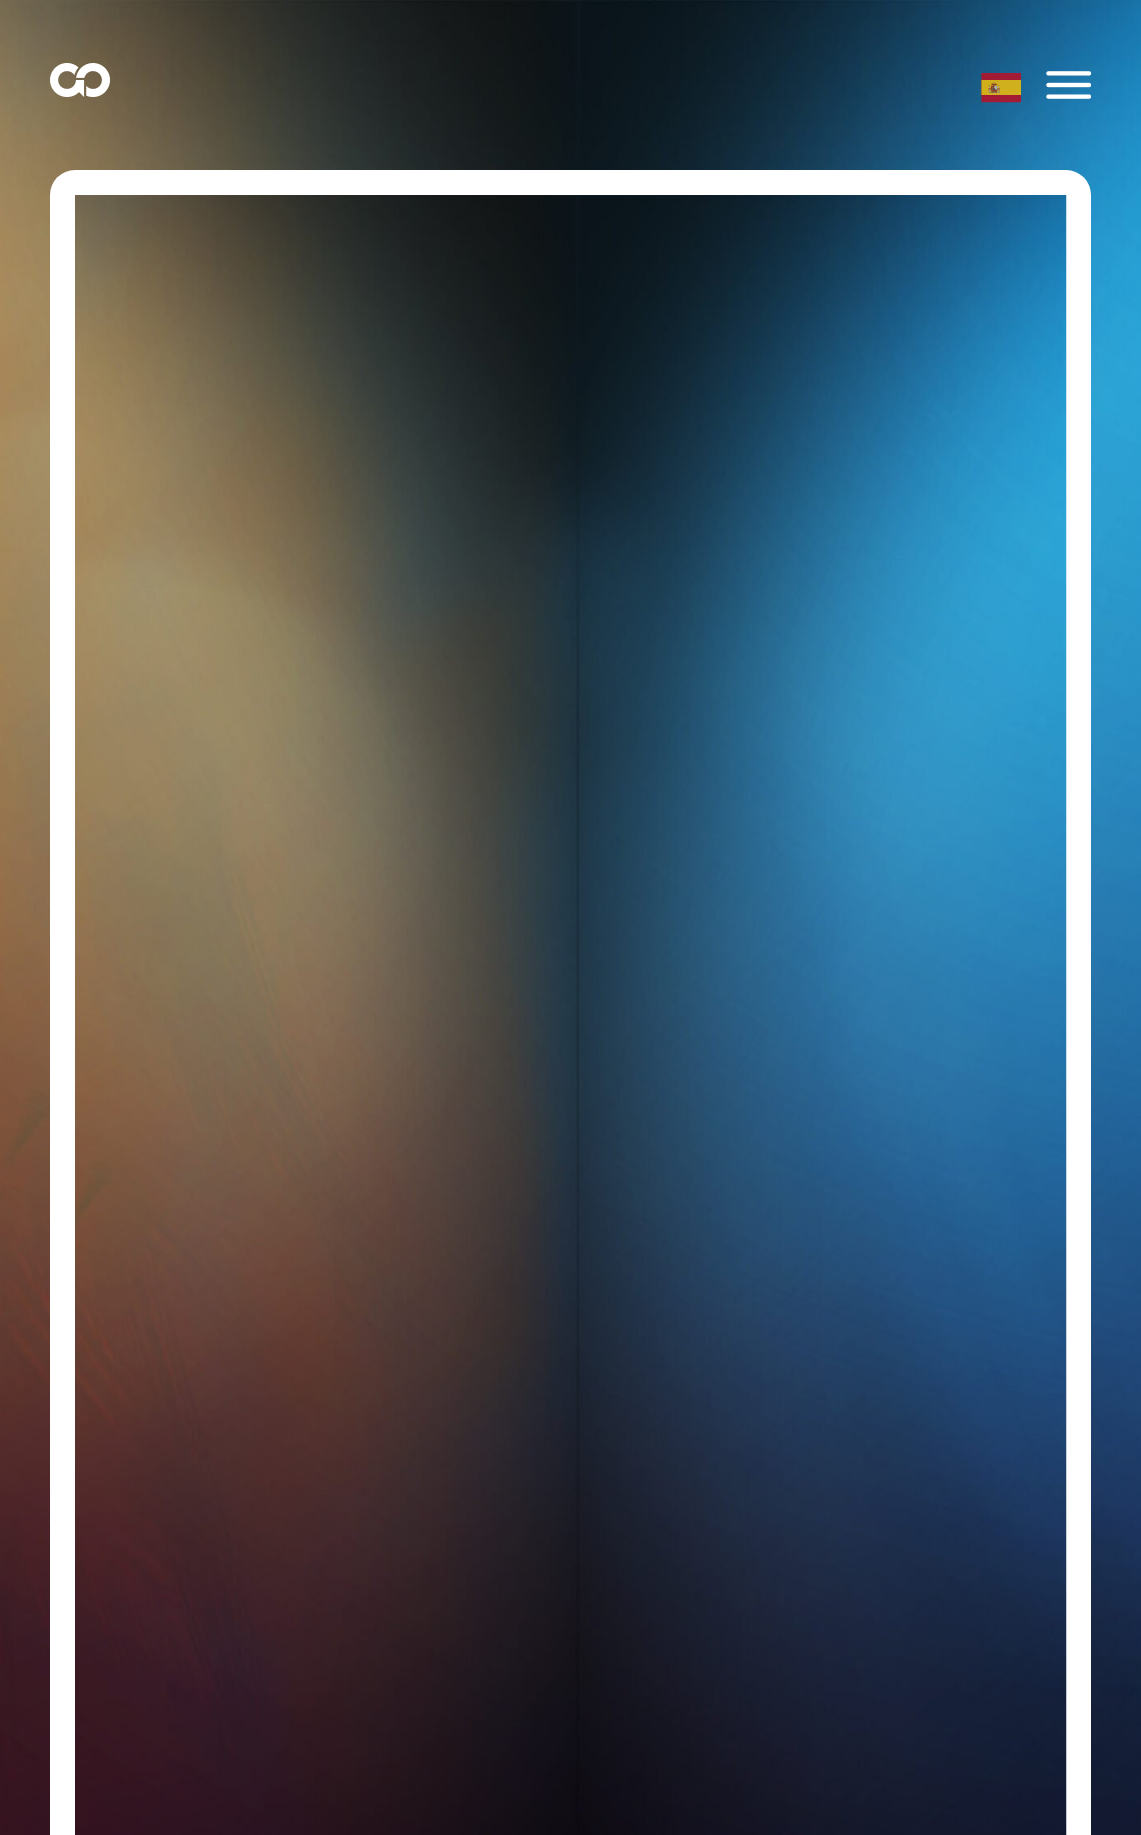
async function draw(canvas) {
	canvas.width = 1141;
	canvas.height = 1835;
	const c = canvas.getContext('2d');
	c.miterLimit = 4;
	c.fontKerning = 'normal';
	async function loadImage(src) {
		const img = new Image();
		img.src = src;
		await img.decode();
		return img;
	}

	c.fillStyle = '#fff';
	c.fillRect(0, 0, 1141, 1835);
	c.drawImage(await loadImage('img1.png'), 0, 0, 1141, 1835);
	c.drawImage(await loadImage('img2.png'), 50, 63, 60, 35);
	c.drawImage(await loadImage('img3.png'), 981, 73, 40, 30);
	c.drawImage(await loadImage('img4.png'), 1046, 71, 45, 28);
	c.beginPath();
	c.roundRect(50, 170, 1041, 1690, 25);
	c.fill();
	c.drawImage(await loadImage('img5.png'), 75, 195, 992, 1640);
}

draw(document.querySelector('canvas'));
